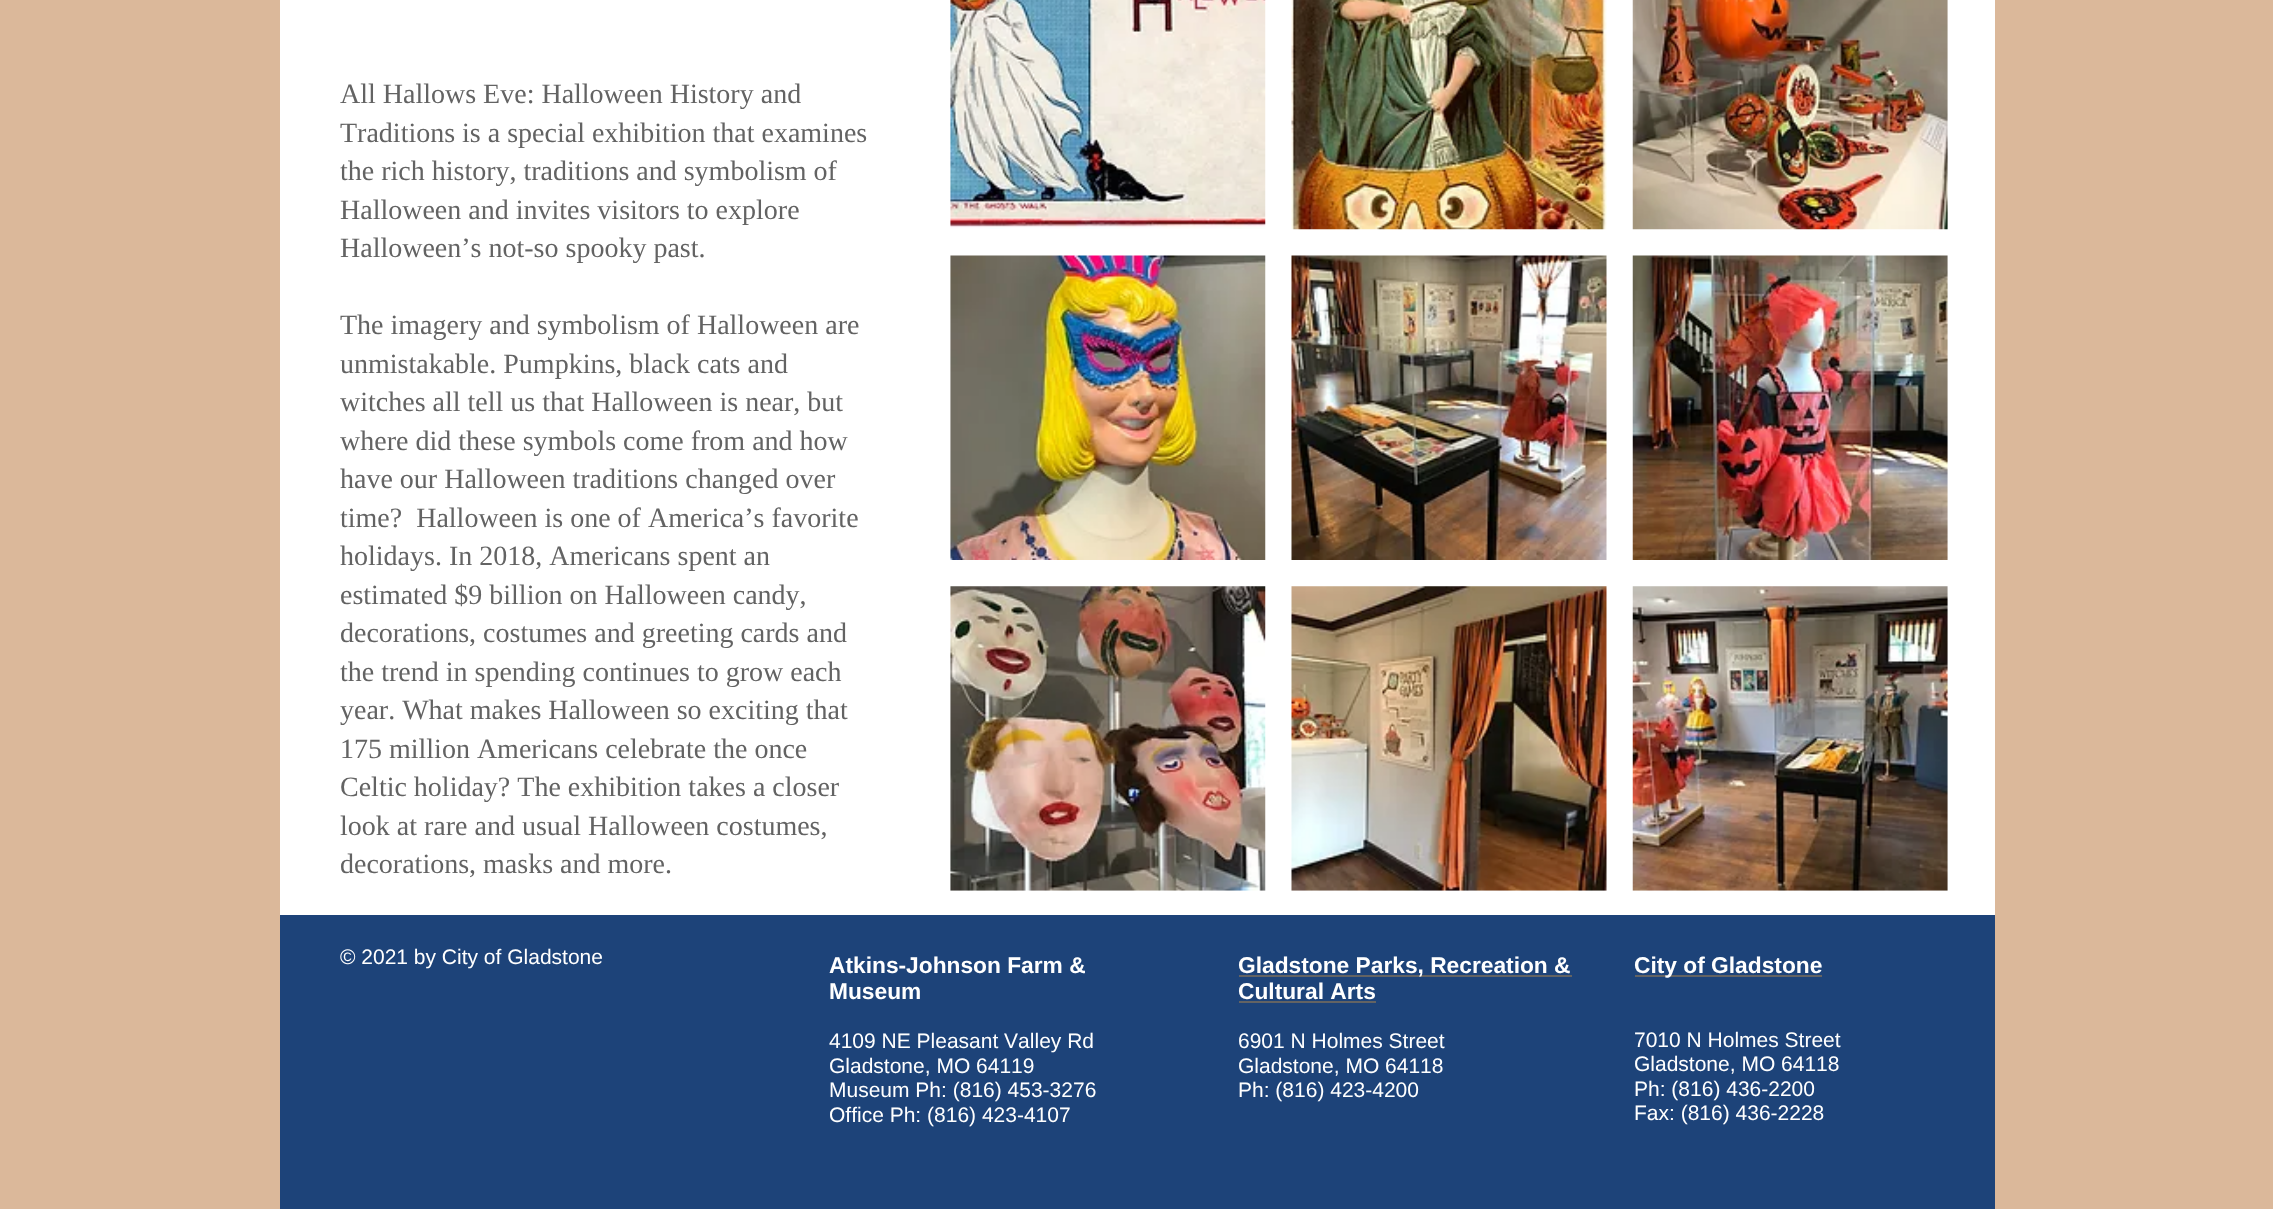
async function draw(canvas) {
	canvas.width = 2273;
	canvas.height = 1209;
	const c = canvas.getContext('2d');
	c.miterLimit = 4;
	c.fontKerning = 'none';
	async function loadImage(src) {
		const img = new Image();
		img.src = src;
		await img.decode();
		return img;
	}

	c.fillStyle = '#dbb89a';
	c.fillRect(0, 0, 2273, 1209);
	c.fillStyle = '#fff';
	c.fillRect(280, 0, 1715, 915);
	c.font = '28px Liberation Serif';
	c.fillStyle = '#636363';
	for (const [text, x, y] of [
		['All Hallows Eve: Halloween History and', 340, 103],
		['Traditions is a special exhibition that examines', 340, 142],
		['the rich history, traditions and symbolism of', 340, 180],
		['Halloween and invites visitors to explore', 340, 219],
		['Halloween’s not-so spooky past.', 340, 257],
		['The imagery and symbolism of Halloween are', 340, 334],
		['unmistakable. Pumpkins, black cats and', 340, 373],
		['witches all tell us that Halloween is near, but', 340, 411],
		['where did these symbols come from and how', 340, 450],
		['have our Halloween traditions changed over', 340, 488],
		['time?  Halloween is one of America’s favorite', 340, 527],
		['holidays. In 2018, Americans spent an', 340, 565],
		['estimated $9 billion on Halloween candy,', 340, 604],
		['decorations, costumes and greeting cards and', 340, 642],
		['the trend in spending continues to grow each', 340, 681],
		['year. What makes Halloween so exciting that', 340, 719],
		['175 million Americans celebrate the once', 340, 758],
		['Celtic holiday? The exhibition takes a closer', 340, 796],
		['look at rare and usual Halloween costumes,', 340, 835],
		['decorations, masks and more.', 340, 873],
	]) {
		c.fillText(text, x, y);
	}
	c.drawImage(await loadImage('img1.png'), 950, 0, 316, 229);
	c.drawImage(await loadImage('img2.png'), 1291, 0, 316, 230);
	c.drawImage(await loadImage('img3.png'), 1632, 0, 316, 230);
	c.drawImage(await loadImage('img4.png'), 950, 255, 316, 305);
	c.drawImage(await loadImage('img5.png'), 1291, 255, 316, 305);
	c.drawImage(await loadImage('img6.png'), 1632, 255, 316, 305);
	c.drawImage(await loadImage('img7.png'), 950, 586, 316, 305);
	c.drawImage(await loadImage('img8.png'), 1291, 586, 316, 305);
	c.drawImage(await loadImage('img9.png'), 1632, 586, 316, 305);
	c.fillStyle = '#1d4379';
	c.fillRect(280, 915, 1715, 294);
	c.font = '21px Liberation Sans';
	c.fillStyle = '#fff';
	c.fillText('© 2021 by City of Gladstone', 340, 964);
	c.font = 'bold 22.75px Liberation Sans';
	c.fillText('Atkins-Johnson Farm &', 829, 973);
	c.fillText('Museum', 829, 999);
	c.font = '21px Liberation Sans';
	for (const [text, x, y] of [
		['4109 NE Pleasant Valley Rd', 829, 1048],
		['Gladstone, MO 64119', 829, 1073],
		['Museum Ph: (816) 453-3276', 829, 1097],
		['Office Ph: (816) 423-4107', 829, 1122],
	]) {
		c.fillText(text, x, y);
	}
	c.fillStyle = '#636363';
	c.fillRect(1239, 975, 333, 2);
	c.font = 'bold 22.75px Liberation Sans';
	c.fillStyle = '#fff';
	c.fillText('Gladstone Parks, Recreation &', 1238, 973);
	c.fillText('Cultural Arts', 1238, 999);
	c.fillStyle = '#636363';
	c.fillRect(1239, 1001, 137, 2);
	c.font = '21px Liberation Sans';
	c.fillStyle = '#fff';
	for (const [text, x, y] of [
		['6901 N Holmes Street', 1238, 1048],
		['Gladstone, MO 64118', 1238, 1073],
		['Ph: (816) 423-4200', 1238, 1097],
	]) {
		c.fillText(text, x, y);
	}
	c.fillStyle = '#636363';
	c.fillRect(1635, 975, 187, 2);
	c.font = 'bold 22.75px Liberation Sans';
	c.fillStyle = '#fff';
	c.fillText('City of Gladstone', 1634, 973);
	c.font = '21px Liberation Sans';
	for (const [text, x, y] of [
		['7010 N Holmes Street', 1634, 1047],
		['Gladstone, MO 64118', 1634, 1071],
		['Ph: (816) 436-2200', 1634, 1096],
		['Fax: (816) 436-2228', 1634, 1120],
	]) {
		c.fillText(text, x, y);
	}
}

draw(document.querySelector('canvas'));
